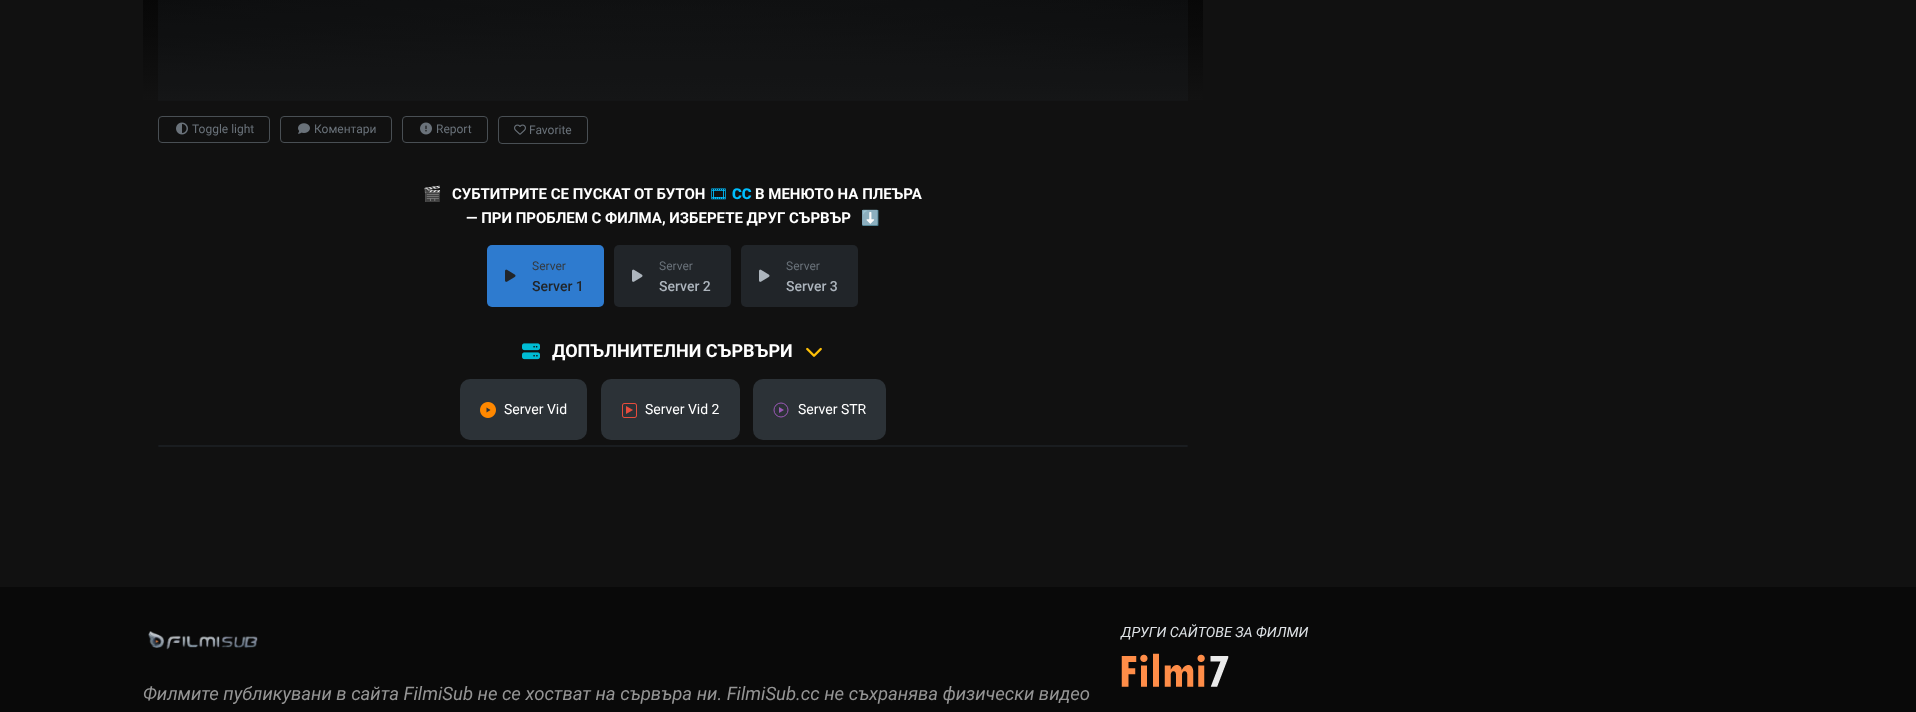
async function draw(canvas) {
	canvas.width = 1916;
	canvas.height = 712;
	const c = canvas.getContext('2d');
	c.miterLimit = 4;
	c.fontKerning = 'normal';
	async function loadImage(src) {
		const img = new Image();
		img.src = src;
		await img.decode();
		return img;
	}
	let gradient;

	c.fillStyle = '#111';
	c.fillRect(0, 0, 1916, 712);
	gradient = c.createRadialGradient(673, -411.56, 0, 673, -411.56, 750);
	gradient.addColorStop(0.1, '#111');
	gradient.addColorStop(1, '#000');
	c.fillStyle = gradient;
	c.beginPath();
	c.rect(143, 0, 1060, 100);
	c.save();
	c.clip();
	c.scale(1, 636 / 750);
	c.fillRect(0, 0, 1916, 840);
	c.restore();
	gradient = c.createLinearGradient(673, -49, 673, 101);
	gradient.addColorStop(0, '#12121200');
	gradient.addColorStop(1, '#121212');
	c.fillStyle = gradient;
	c.fillRect(143, 0, 1060, 100);
	c.fillStyle = '#22272c33';
	c.fillRect(158, 0, 1030, 101);
	c.beginPath();
	c.roundRect(158.5, 116.5, 111, 26, 3.5);
	c.strokeStyle = '#494f54';
	c.stroke();
	c.drawImage(await loadImage('img1.png'), 176, 122, 12, 13);
	c.font = '12px Roboto';
	c.fillStyle = '#6a727a';
	c.fillText('Toggle light', 192, 133);
	c.beginPath();
	c.roundRect(280.5, 116.5, 111, 26, 3.5);
	c.stroke();
	c.drawImage(await loadImage('img2.png'), 298, 123, 12, 11);
	c.fillText('Коментари', 314, 133);
	c.beginPath();
	c.roundRect(402.5, 116.5, 85, 26, 3.5);
	c.stroke();
	c.drawImage(await loadImage('img3.png'), 420, 122, 12, 13);
	c.fillText('Report', 436, 133);
	c.beginPath();
	c.roundRect(498.5, 116.5, 89, 27, 3.5);
	c.stroke();
	c.drawImage(await loadImage('img4.png'), 514, 124, 12, 11);
	c.fillText('Favorite', 529, 134);
	c.font = 'bold 15px Noto Color Emoji';
	c.fillStyle = '#fff';
	c.fillText('🎬', 423, 199);
	c.font = 'bold 15px Roboto';
	c.fillText('СУБТИТРИТЕ СЕ ПУСКАТ ОТ БУТОН', 452, 199);
	c.font = 'bold 15px Noto Emoji';
	c.fillStyle = '#00bfff';
	c.fillText('🎞', 709, 199);
	c.font = '900 15px Roboto';
	c.fillText('CC', 732, 199);
	c.font = 'bold 15px Roboto';
	c.fillStyle = '#fff';
	c.fillText('В МЕНЮТО НА ПЛЕЪРА', 755, 199);
	c.fillText('— ПРИ ПРОБЛЕМ С ФИЛМА, ИЗБЕРЕТЕ ДРУГ СЪРВЪР', 466, 223);
	c.font = 'bold 15px Noto Color Emoji';
	c.fillText('⬇️', 861, 223);
	c.fillStyle = '#2e7bcf';
	c.beginPath();
	c.roundRect(487, 245, 117, 62, 5);
	c.fill();
	c.font = '12px Roboto';
	c.fillStyle = '#343a40';
	c.fillText('Server', 532, 270);
	c.drawImage(await loadImage('img5.png'), 505, 269, 11, 13);
	c.font = '500 14px Roboto';
	c.fillStyle = '#212529';
	c.fillText('Server 1', 532, 291);
	c.beginPath();
	c.roundRect(614, 245, 117, 62, 5);
	c.fill();
	c.font = '12px Roboto';
	c.fillStyle = '#6a727a';
	c.fillText('Server', 659, 270);
	c.drawImage(await loadImage('img6.png'), 632, 269, 11, 13);
	c.font = '500 14px Roboto';
	c.fillStyle = '#adb5bd';
	c.fillText('Server 2', 659, 291);
	c.fillStyle = '#212529';
	c.beginPath();
	c.roundRect(741, 245, 117, 62, 5);
	c.fill();
	c.font = '12px Roboto';
	c.fillStyle = '#6a727a';
	c.fillText('Server', 786, 270);
	c.drawImage(await loadImage('img6.png'), 759, 269, 11, 13);
	c.font = '500 14px Roboto';
	c.fillStyle = '#adb5bd';
	c.fillText('Server 3', 786, 291);
	c.drawImage(await loadImage('img7.png'), 522, 343, 18, 17);
	c.font = 'bold 18px Roboto';
	c.fillStyle = '#fff';
	c.fillText('ДОПЪЛНИТЕЛНИ СЪРВЪРИ', 552, 357);
	c.drawImage(await loadImage('img8.png'), 806, 347, 16, 10);
	c.fillStyle = '#2c3237';
	c.beginPath();
	c.roundRect(460, 379, 127, 61, 10);
	c.fill();
	c.drawImage(await loadImage('img9.png'), 480, 402, 16, 16);
	c.font = '14px Roboto';
	c.fillStyle = '#fff';
	c.fillText('Server Vid', 504, 414);
	c.fillStyle = '#2c3237';
	c.beginPath();
	c.roundRect(601, 379, 139, 61, 10);
	c.fill();
	c.drawImage(await loadImage('img10.png'), 622, 403, 15, 15);
	c.fillStyle = '#fff';
	c.fillText('Server Vid 2', 645, 414);
	c.fillStyle = '#2c3237';
	c.beginPath();
	c.roundRect(753, 379, 133, 61, 10);
	c.fill();
	c.beginPath();
	c.arc(781, 410, 7, 0, 2 * Math.PI);
	c.strokeStyle = '#9b59b6';
	c.stroke();
	c.fillStyle = '#fff';
	c.fillText('Server STR', 798, 414);
	c.fillStyle = '#9b59b6';
	c.beginPath();
	c.moveTo(779, 407);
	c.lineTo(779, 413);
	c.lineTo(784, 410);
	c.closePath();
	c.fill();
	c.fillStyle = '#212529';
	c.beginPath();
	c.roundRect(158, 445, 1030, 2, 1);
	c.fill();
	c.fillStyle = '#00000033';
	c.fillRect(158, 445, 1030, 2);
	c.fillStyle = '#090909';
	c.fillRect(0, 587, 1916, 125);
	c.font = 'italic 14.25px Roboto';
	c.fillStyle = '#dee2e6';
	c.fillText('ДРУГИ САЙТОВЕ ЗА ФИЛМИ', 1121, 637);
	c.drawImage(await loadImage('img11.png'), 1121, 653, 108, 34);
	c.drawImage(await loadImage('img12.png'), 148, 631, 110, 19);
	c.font = 'italic 18.52px Roboto';
	c.fillStyle = '#959595';
	c.fillText('Филмите публикувани в сайта FilmiSub не се хостват на сървъра ни. FilmiSub.cc не съхранява физически видео', 143, 700);
}

draw(document.querySelector('canvas'));
